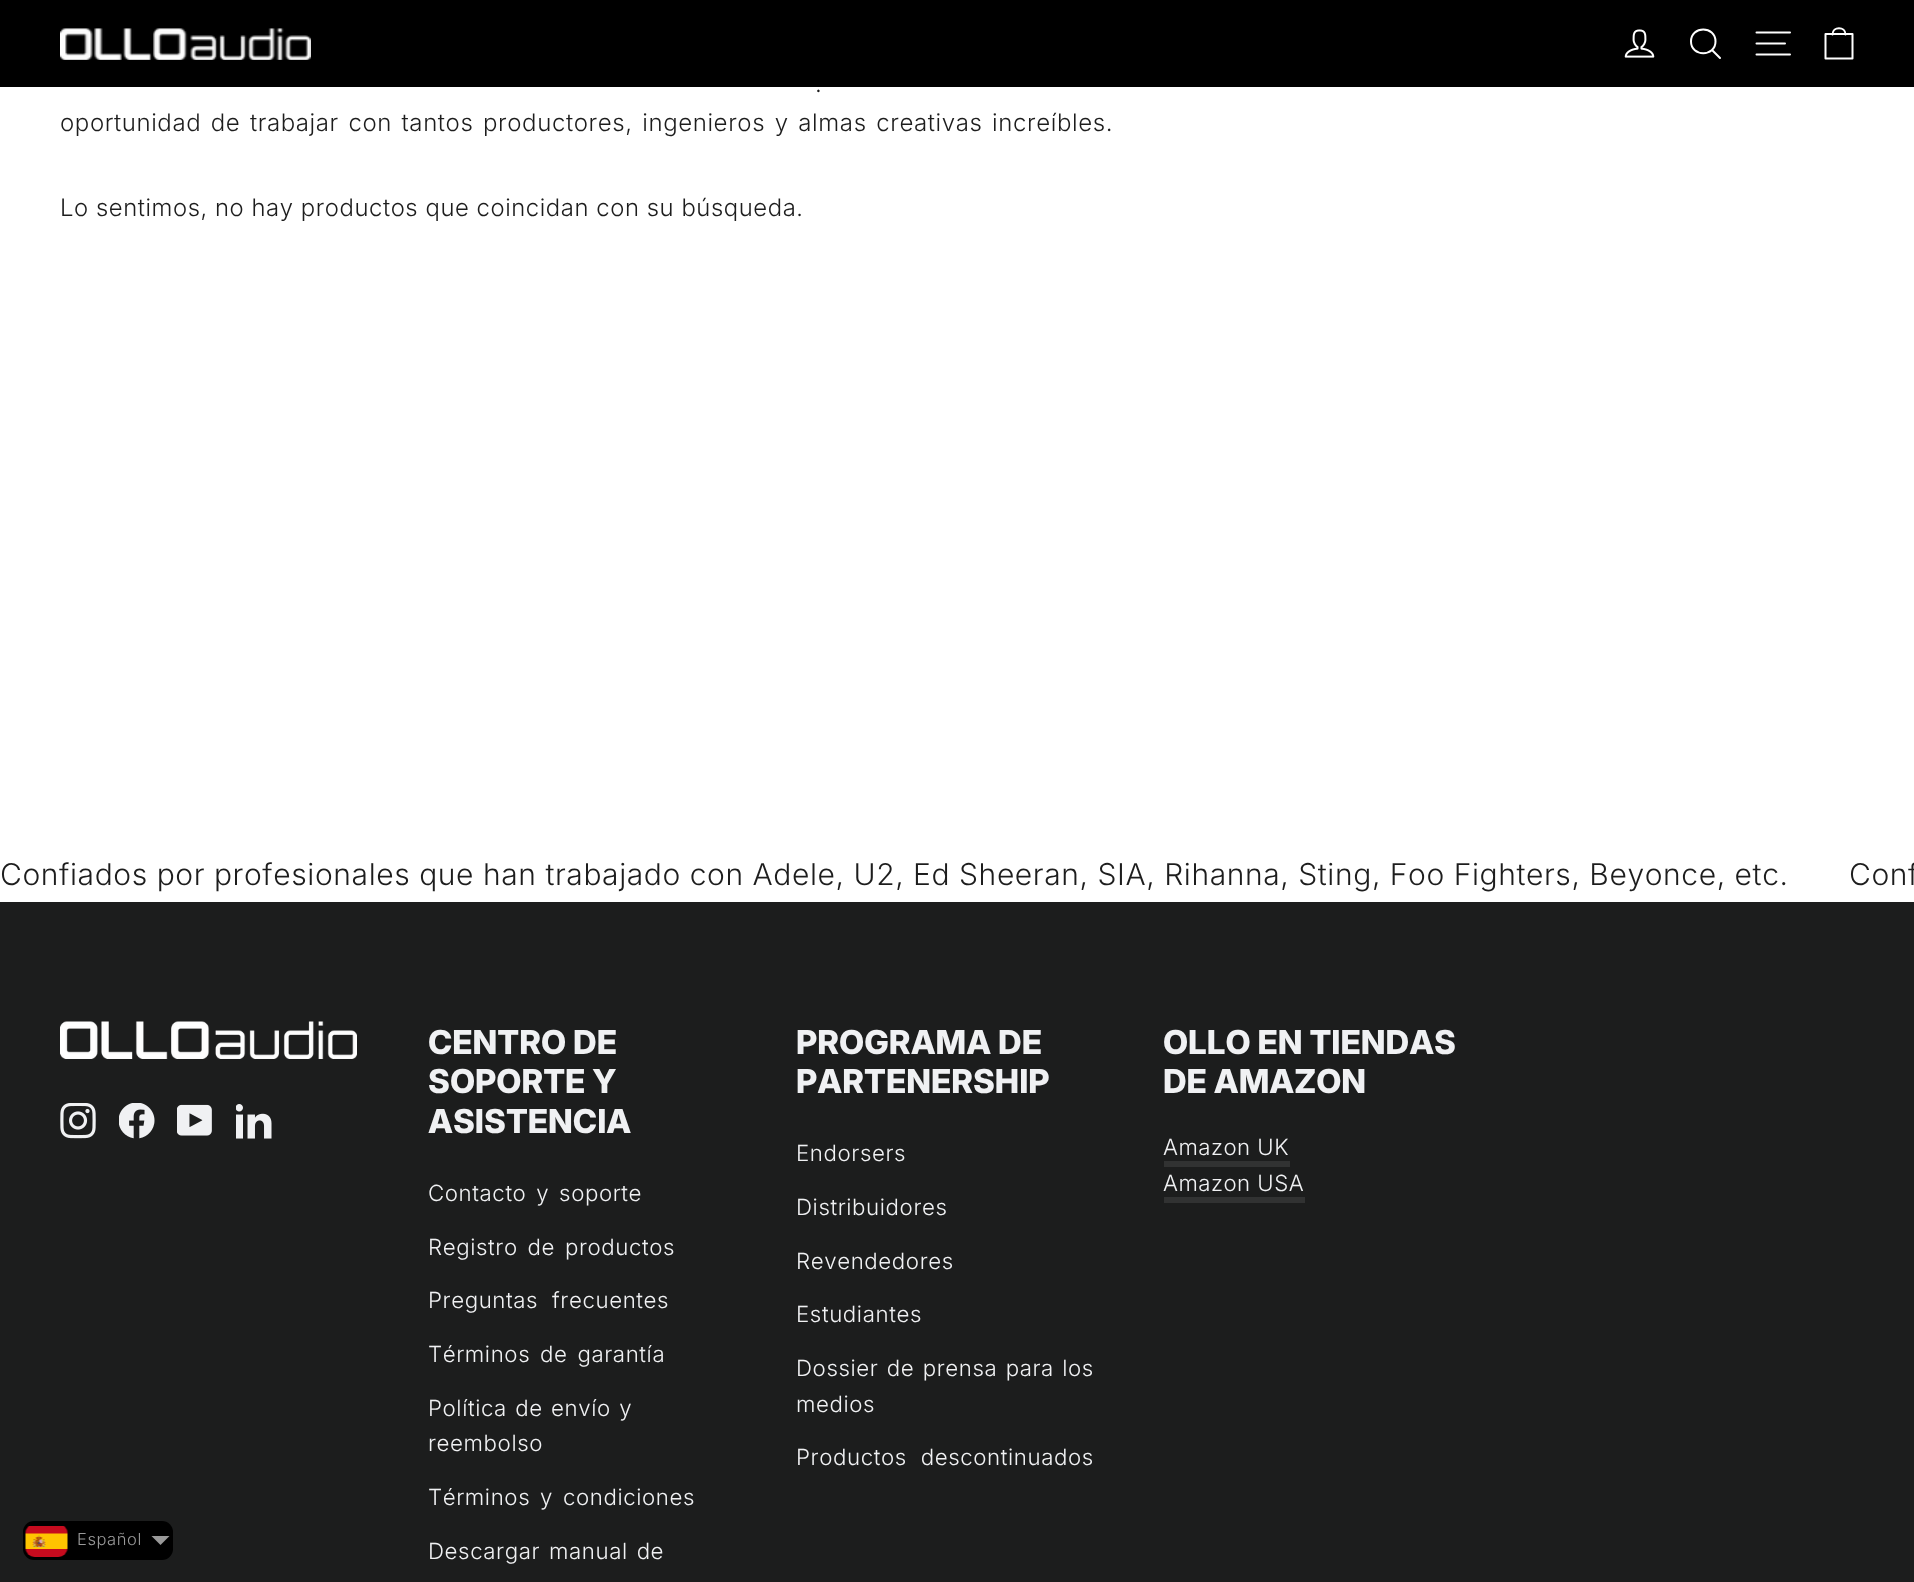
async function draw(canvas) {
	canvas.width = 1914;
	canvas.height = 1582;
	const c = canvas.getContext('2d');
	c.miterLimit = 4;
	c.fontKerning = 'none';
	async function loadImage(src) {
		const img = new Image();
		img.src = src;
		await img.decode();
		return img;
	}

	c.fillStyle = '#fff';
	c.fillRect(0, 0, 1914, 1582);
	c.fillStyle = '#000';
	c.fillRect(0, 0, 1914, 87);
	c.drawImage(await loadImage('img1.png'), 60, 28, 251, 32);
	c.drawImage(await loadImage('img2.png'), 1624, 29, 31, 29);
	c.beginPath();
	c.moveTo(1715.5, 41.5);
	c.bezierCurveTo(1715.5, 57, 1691, 57, 1691, 41.5);
	c.bezierCurveTo(1691, 25.5, 1715.5, 25.5, 1715.5, 41.5);
	c.closePath();
	c.moveTo(1720, 58);
	c.lineTo(1712, 50);
	c.strokeStyle = '#fff';
	c.lineWidth = 2;
	c.lineCap = 'round';
	c.lineJoin = 'round';
	c.stroke();
	c.beginPath();
	c.moveTo(1756.5, 32.5);
	c.lineTo(1790, 32.5);
	c.moveTo(1756.5, 43.5);
	c.lineTo(1785, 43.5);
	c.moveTo(1756.5, 54.5);
	c.lineTo(1790, 54.5);
	c.stroke();
	c.beginPath();
	c.moveTo(1825.5, 34);
	c.lineTo(1852.5, 34);
	c.lineTo(1852.5, 58.5);
	c.lineTo(1825.5, 58.5);
	c.closePath();
	c.moveTo(1832.5, 34.5);
	c.bezierCurveTo(1832.5, 26, 1845.5, 26, 1845.5, 34.5);
	c.stroke();
	c.letterSpacing = '0.6px';
	c.wordSpacing = '1px';
	c.font = '300 24px "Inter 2"';
	c.fillStyle = '#1d1d1d';
	c.fillText('.', 815, 92);
	c.wordSpacing = '2.25px';
	c.fillText('oportunidad de trabajar con tantos productores, ingenieros y almas creativas increíbles.', 60, 131);
	c.wordSpacing = '0px';
	c.font = '300 24px Inter';
	c.fillText('Lo sentimos, no hay productos que coincidan con su búsqueda.', 60, 216);
	c.wordSpacing = '-0.2px';
	c.font = '300 30px "Inter 2"';
	c.fillText('Confiados por profesionales que han trabajado con Adele, U2, Ed Sheeran, SIA, Rihanna, Sting, Foo Fighters, Beyonce, etc.', 0, 885);
	c.fillText('Conf', 1849, 885);
	c.fillStyle = '#1c1d1d';
	c.fillRect(0, 902, 1914, 680);
	c.drawImage(await loadImage('img3.png'), 60, 1021, 297, 38);
	c.drawImage(await loadImage('img4.png'), 60, 1103, 36, 36);
	c.drawImage(await loadImage('img5.png'), 119, 1103, 36, 36);
	c.drawImage(await loadImage('img6.png'), 177, 1104, 35, 32);
	c.drawImage(await loadImage('img7.png'), 236, 1104, 36, 35);
	c.letterSpacing = '0px';
	c.wordSpacing = '0px';
	c.font = '800 33px Inter';
	c.fillStyle = '#f0f1f3';
	for (const [text, x, y] of [
		['CENTRO DE', 428, 1054],
		['SOPORTE Y', 428, 1093],
		['ASISTENCIA', 428, 1133],
	]) {
		c.fillText(text, x, y);
	}
	c.letterSpacing = '0.6px';
	c.wordSpacing = '3px';
	c.font = '300 22.25px "Inter 2"';
	c.fillText('Contacto y soporte', 428, 1201);
	c.fillText('Registro de productos', 428, 1255);
	c.wordSpacing = '7px';
	c.fillText('Preguntas frecuentes', 428, 1308);
	c.wordSpacing = '3px';
	c.fillText('Términos de garantía', 428, 1362);
	c.wordSpacing = '1.5px';
	c.fillText('Política de envío y', 428, 1416);
	c.wordSpacing = '0px';
	c.fillText('reembolso', 428, 1451);
	c.wordSpacing = '3px';
	c.fillText('Términos y condiciones', 428, 1505);
	c.wordSpacing = '2px';
	c.fillText('Descargar manual de', 428, 1559);
	c.letterSpacing = '0px';
	c.wordSpacing = '0px';
	c.font = '800 33px Inter';
	c.fillText('PROGRAMA DE', 796, 1054);
	c.fillText('PARTENERSHIP', 796, 1093);
	c.letterSpacing = '0.6px';
	c.font = '300 22.25px "Inter 2"';
	for (const [text, x, y] of [
		['Endorsers', 796, 1161],
		['Distribuidores', 796, 1215],
		['Revendedores', 796, 1269],
		['Estudiantes', 796, 1322],
	]) {
		c.fillText(text, x, y);
	}
	c.wordSpacing = '1.5px';
	c.fillText('Dossier de prensa para los', 796, 1376);
	c.wordSpacing = '0px';
	c.fillText('medios', 796, 1412);
	c.wordSpacing = '7px';
	c.fillText('Productos descontinuados', 796, 1465);
	c.letterSpacing = '0px';
	c.wordSpacing = '0px';
	c.font = '800 33px Inter';
	c.fillText('OLLO EN TIENDAS', 1163, 1054);
	c.fillText('DE AMAZON', 1163, 1093);
	c.letterSpacing = '0.5px';
	c.font = '300 22.25px "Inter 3"';
	c.fillText('Amazon UK', 1163, 1155);
	c.fillStyle = '#313232';
	c.fillRect(1164, 1161, 126, 6);
	c.fillStyle = '#f0f1f3';
	c.fillText('Amazon USA', 1163, 1191);
	c.fillStyle = '#313232';
	c.fillRect(1164, 1197, 141, 6);
	c.fillStyle = '#000';
	c.beginPath();
	c.roundRect(23, 1521, 150, 39, 11);
	c.fill();
	c.drawImage(await loadImage('img8.png'), 25, 1526, 43, 31);
	c.letterSpacing = '0.6px';
	c.font = '300 16.5px "Inter 2"';
	c.fillStyle = '#999';
	c.fillText('Español', 77, 1545);
	c.beginPath();
	c.moveTo(151.5, 1536);
	c.lineTo(169.5, 1536);
	c.lineTo(160.5, 1545);
	c.closePath();
	c.fill();
}

draw(document.querySelector('canvas'));
